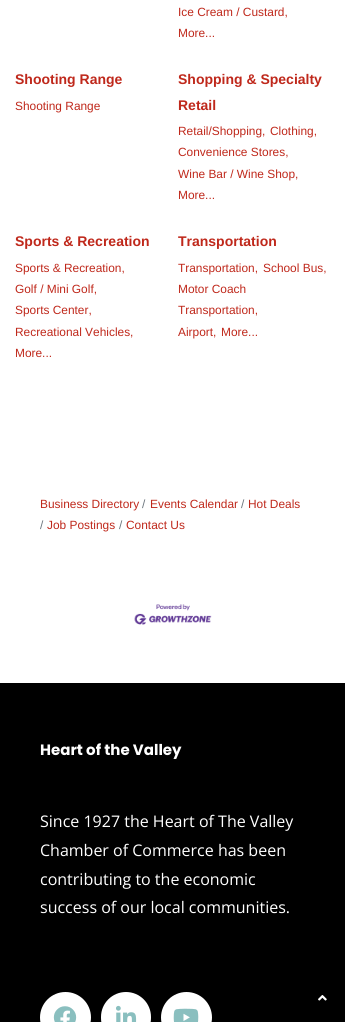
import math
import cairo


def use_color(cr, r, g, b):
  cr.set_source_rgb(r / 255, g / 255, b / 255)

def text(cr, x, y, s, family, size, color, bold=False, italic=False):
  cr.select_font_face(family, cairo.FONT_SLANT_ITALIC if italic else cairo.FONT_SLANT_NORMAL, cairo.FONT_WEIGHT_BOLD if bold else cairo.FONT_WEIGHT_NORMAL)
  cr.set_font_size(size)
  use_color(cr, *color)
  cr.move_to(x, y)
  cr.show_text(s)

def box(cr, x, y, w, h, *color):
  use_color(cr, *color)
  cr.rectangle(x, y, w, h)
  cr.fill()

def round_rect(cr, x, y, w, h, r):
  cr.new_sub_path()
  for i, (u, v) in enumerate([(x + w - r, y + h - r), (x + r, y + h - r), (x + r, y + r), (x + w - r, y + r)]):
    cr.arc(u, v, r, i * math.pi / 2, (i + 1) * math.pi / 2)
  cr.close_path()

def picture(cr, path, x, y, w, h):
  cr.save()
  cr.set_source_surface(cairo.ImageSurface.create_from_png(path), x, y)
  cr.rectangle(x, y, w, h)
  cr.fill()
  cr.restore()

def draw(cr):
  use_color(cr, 255, 255, 255)
  cr.paint()
  picture(cr, "img_01.png", 134, 604, 78, 21)
  box(cr, 0, 683, 345, 339, 0, 0, 0)
  use_color(cr, 255, 255, 255)
  cr.arc(65.5, 1017.5, 25.5, 0, 2 * math.pi)
  cr.fill()
  picture(cr, "img_02.png", 53, 1006, 24, 16)
  round_rect(cr, 101, 992, 50, 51, 25)
  cr.fill()
  picture(cr, "img_03.png", 116, 1005, 21, 17)
  cr.arc(186.5, 1017.5, 25.5, 0, 2 * math.pi)
  cr.fill()
  picture(cr, "img_04.png", 173, 1008, 26, 14)
  picture(cr, "img_05.png", 318, 995, 9, 6)
  text(cr, 178, 16, "Ice Cream / Custard,", "Liberation Sans", 11.9, (191, 40, 27))
  text(cr, 178, 37, "More...", "Liberation Sans", 11.9, (191, 40, 27))
  text(cr, 15, 84, "Shooting Range", "Liberation Sans", 14, (191, 40, 27), bold=True)
  text(cr, 15, 110, "Shooting Range", "Liberation Sans", 11.9, (191, 40, 27))
  text(cr, 178, 84, "Shopping & Specialty", "Liberation Sans", 14, (191, 40, 27), bold=True)
  text(cr, 178, 110, "Retail", "Liberation Sans", 14, (191, 40, 27), bold=True)
  text(cr, 178, 135, "Retail/Shopping,", "Liberation Sans", 11.9, (191, 40, 27))
  text(cr, 270, 135, "Clothing,", "Liberation Sans", 11.9, (191, 40, 27))
  text(cr, 178, 156, "Convenience Stores,", "Liberation Sans", 11.9, (191, 40, 27))
  text(cr, 178, 178, "Wine Bar / Wine Shop,", "Liberation Sans", 11.9, (191, 40, 27))
  text(cr, 178, 199, "More...", "Liberation Sans", 11.9, (191, 40, 27))
  text(cr, 15, 246, "Sports & Recreation", "Liberation Sans", 14, (191, 40, 27), bold=True)
  text(cr, 15, 272, "Sports & Recreation,", "Liberation Sans", 11.9, (191, 40, 27))
  text(cr, 15, 293, "Golf / Mini Golf,", "Liberation Sans", 11.9, (191, 40, 27))
  text(cr, 15, 314, "Sports Center,", "Liberation Sans", 11.9, (191, 40, 27))
  text(cr, 15, 336, "Recreational Vehicles,", "Liberation Sans", 11.9, (191, 40, 27))
  text(cr, 15, 357, "More...", "Liberation Sans", 11.9, (191, 40, 27))
  text(cr, 178, 246, "Transportation", "Liberation Sans", 14, (191, 40, 27), bold=True)
  text(cr, 178, 272, "Transportation,", "Liberation Sans", 11.9, (191, 40, 27))
  text(cr, 263, 272, "School Bus,", "Liberation Sans", 11.9, (191, 40, 27))
  text(cr, 178, 293, "Motor Coach", "Liberation Sans", 11.9, (191, 40, 27))
  text(cr, 178, 314, "Transportation,", "Liberation Sans", 11.9, (191, 40, 27))
  text(cr, 178, 336, "Airport,", "Liberation Sans", 11.9, (191, 40, 27))
  text(cr, 221, 336, "More...", "Liberation Sans", 11.9, (191, 40, 27))
  text(cr, 40, 508, "Business Directory", "Liberation Sans", 11.9, (191, 40, 27))
  text(cr, 142, 508, "/", "Liberation Sans", 11.9, (108, 117, 125))
  text(cr, 150, 508, "Events Calendar", "Liberation Sans", 11.9, (191, 40, 27))
  text(cr, 241, 508, "/", "Liberation Sans", 11.9, (108, 117, 125))
  text(cr, 248, 508, "Hot Deals", "Liberation Sans", 11.9, (191, 40, 27))
  text(cr, 40, 529, "/", "Liberation Sans", 11.9, (108, 117, 125))
  text(cr, 47, 529, "Job Postings", "Liberation Sans", 11.9, (191, 40, 27))
  text(cr, 119, 529, "/", "Liberation Sans", 11.9, (108, 117, 125))
  text(cr, 126, 529, "Contact Us", "Liberation Sans", 11.9, (191, 40, 27))
  text(cr, 40, 755, "Heart of the Valley", "Poppins", 15, (255, 255, 255), bold=True)
  text(cr, 40, 827, "Since 1927 the Heart of The Valley", "Open Sans", 16, (255, 255, 255))
  text(cr, 40, 856, "Chamber of Commerce has been", "Open Sans", 16, (255, 255, 255))
  text(cr, 40, 885, "contributing to the economic", "Open Sans", 16, (255, 255, 255))
  text(cr, 40, 913, "success of our local communities.", "Open Sans", 16, (255, 255, 255))


surface = cairo.ImageSurface(cairo.FORMAT_RGB24, 345, 1022)
cr = cairo.Context(surface)
options = cairo.FontOptions()
options.set_hint_metrics(cairo.HINT_METRICS_OFF)
options.set_hint_style(cairo.HINT_STYLE_NONE)
cr.set_font_options(options)
cr.set_miter_limit(4)
draw(cr)
surface.write_to_png("out.png")
